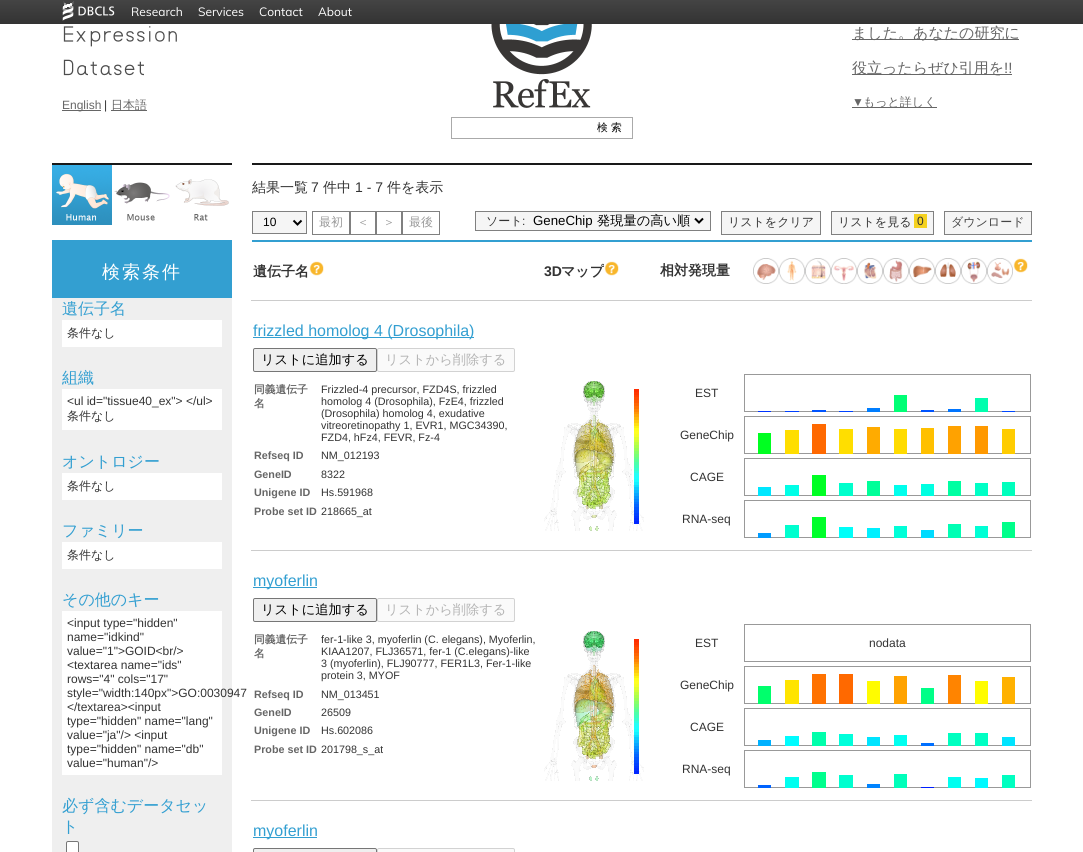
import math
import cairo


def use_color(cr, r, g, b):
  cr.set_source_rgb(r / 255, g / 255, b / 255)

def text(cr, x, y, s, family, size, color, bold=False, italic=False):
  cr.select_font_face(family, cairo.FONT_SLANT_ITALIC if italic else cairo.FONT_SLANT_NORMAL, cairo.FONT_WEIGHT_BOLD if bold else cairo.FONT_WEIGHT_NORMAL)
  cr.set_font_size(size)
  use_color(cr, *color)
  cr.move_to(x, y)
  cr.show_text(s)

def spaced_text(cr, x, y, s, letter, word):
  cr.move_to(x, y)
  for ch in s:
    cr.show_text(ch)
    cr.rel_move_to(letter + word * (ch == ' '), 0)

def box(cr, x, y, w, h, *color):
  use_color(cr, *color)
  cr.rectangle(x, y, w, h)
  cr.fill()

def round_rect(cr, x, y, w, h, r):
  cr.new_sub_path()
  for i, (u, v) in enumerate([(x + w - r, y + h - r), (x + r, y + h - r), (x + r, y + r), (x + w - r, y + r)]):
    cr.arc(u, v, r, i * math.pi / 2, (i + 1) * math.pi / 2)
  cr.close_path()

def picture(cr, path, x, y, w, h):
  cr.save()
  cr.set_source_surface(cairo.ImageSurface.create_from_png(path), x, y)
  cr.rectangle(x, y, w, h)
  cr.fill()
  cr.restore()

def draw(cr):
  use_color(cr, 255, 255, 255)
  cr.paint()
  gradient = cairo.LinearGradient(542, 0, 542, 24)
  gradient.add_color_stop_rgba(0, 0.267, 0.267, 0.267, 1)
  gradient.add_color_stop_rgba(1, 0.2, 0.2, 0.2, 1)
  cr.set_source(gradient)
  cr.rectangle(0, 0, 1083, 24)
  cr.fill()
  picture(cr, "img_01.png", 62, 1, 53, 20)
  picture(cr, "img_02.png", 63, 24, 114, 52)
  box(cr, 62, 110, 39, 1, 102, 102, 102)
  box(cr, 111, 110, 36, 1, 102, 102, 102)
  box(cr, 852, 39, 167, 1, 102, 102, 102)
  box(cr, 852, 74, 160, 1, 102, 102, 102)
  box(cr, 852, 107, 85, 1, 102, 102, 102)
  picture(cr, "img_03.png", 491, 24, 101, 84)
  cr.rectangle(451.5, 117.5, 181, 21)
  use_color(cr, 170, 170, 170)
  cr.set_line_width(1)
  cr.stroke()
  box(cr, 52, 163, 180, 2, 25, 25, 25)
  picture(cr, "img_04.png", 52, 165, 60, 60)
  picture(cr, "img_05.png", 114, 182, 56, 39)
  picture(cr, "img_06.png", 175, 179, 54, 42)
  box(cr, 252, 163, 780, 2, 25, 25, 25)
  use_color(cr, 245, 245, 245)
  cr.rectangle(252.5, 211.5, 54, 22)
  cr.fill_preserve()
  use_color(cr, 128, 128, 128)
  cr.stroke()
  cr.new_path()
  cr.move_to(293.5, 220.5)
  cr.line_to(297.5, 224.5)
  cr.line_to(301.5, 220.5)
  use_color(cr, 0, 0, 0)
  cr.set_line_width(2)
  cr.stroke()
  cr.rectangle(312.5, 211.5, 37, 23)
  use_color(cr, 128, 128, 128)
  cr.set_line_width(1)
  cr.stroke()
  cr.rectangle(350.5, 211.5, 25, 23)
  cr.stroke()
  cr.rectangle(376.5, 211.5, 25, 23)
  cr.stroke()
  cr.rectangle(402.5, 211.5, 37, 23)
  cr.stroke()
  use_color(cr, 245, 245, 245)
  cr.rectangle(475.5, 211.5, 235, 19)
  cr.fill_preserve()
  use_color(cr, 128, 128, 128)
  cr.stroke()
  cr.new_path()
  cr.move_to(695, 218.5)
  cr.line_to(699, 222.5)
  cr.line_to(703, 218.5)
  use_color(cr, 0, 0, 0)
  cr.set_line_width(2)
  cr.stroke()
  use_color(cr, 245, 245, 245)
  cr.rectangle(721.5, 211.5, 99, 23)
  cr.fill_preserve()
  use_color(cr, 128, 128, 128)
  cr.set_line_width(1)
  cr.stroke()
  use_color(cr, 245, 245, 245)
  cr.rectangle(831.5, 211.5, 102, 23)
  cr.fill_preserve()
  use_color(cr, 128, 128, 128)
  cr.stroke()
  box(cr, 914, 214, 13, 14, 245, 210, 32)
  use_color(cr, 245, 245, 245)
  cr.rectangle(944.5, 211.5, 87, 23)
  cr.fill_preserve()
  use_color(cr, 128, 128, 128)
  cr.stroke()
  box(cr, 52, 298, 180, 554, 239, 239, 239)
  box(cr, 52, 240, 180, 58, 51, 159, 209)
  box(cr, 62, 320, 160, 27, 255, 255, 255)
  box(cr, 62, 389, 160, 41, 255, 255, 255)
  box(cr, 62, 473, 160, 27, 255, 255, 255)
  box(cr, 62, 542, 160, 27, 255, 255, 255)
  box(cr, 62, 611, 160, 164, 255, 255, 255)
  round_rect(cr, 66.5, 841.5, 12, 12, 1.5)
  cr.fill_preserve()
  use_color(cr, 118, 118, 118)
  cr.stroke()
  box(cr, 252, 240, 780, 2, 51, 159, 209)
  box(cr, 251, 300, 781, 1, 204, 204, 204)
  picture(cr, "img_07.png", 753, 258, 26, 26)
  picture(cr, "img_08.png", 779, 258, 26, 26)
  picture(cr, "img_09.png", 805, 258, 26, 26)
  picture(cr, "img_10.png", 831, 258, 26, 26)
  picture(cr, "img_11.png", 857, 258, 26, 26)
  picture(cr, "img_12.png", 883, 258, 26, 26)
  picture(cr, "img_13.png", 909, 258, 26, 26)
  picture(cr, "img_14.png", 935, 258, 26, 26)
  picture(cr, "img_15.png", 961, 258, 26, 26)
  picture(cr, "img_16.png", 987, 258, 26, 26)
  picture(cr, "img_17.png", 1013, 258, 15, 15)
  picture(cr, "img_18.png", 309, 261, 15, 15)
  box(cr, 253, 337, 221, 1, 51, 159, 209)
  use_color(cr, 239, 239, 239)
  round_rect(cr, 253.5, 348.5, 123, 23, 1.5)
  cr.fill_preserve()
  use_color(cr, 118, 118, 118)
  cr.stroke()
  use_color(cr, 250, 250, 250)
  round_rect(cr, 377.5, 348.5, 137, 23, 1.5)
  cr.fill_preserve()
  use_color(cr, 210, 210, 210)
  cr.stroke()
  picture(cr, "img_19.png", 544, 381, 100, 150)
  box(cr, 251, 550, 781, 1, 204, 204, 204)
  box(cr, 744, 374, 287, 1, 153, 153, 153)
  box(cr, 744, 411, 14, 1, 153, 153, 153)
  box(cr, 744, 374, 1, 38, 153, 153, 153)
  box(cr, 1030, 374, 1, 38, 153, 153, 153)
  box(cr, 1015, 411, 16, 1, 153, 153, 153)
  box(cr, 758, 411, 13, 1, 0, 51, 255)
  box(cr, 771, 411, 14, 1, 153, 153, 153)
  box(cr, 785, 411, 14, 1, 0, 63, 255)
  box(cr, 799, 411, 13, 1, 153, 153, 153)
  box(cr, 812, 410, 14, 2, 0, 84, 255)
  box(cr, 826, 411, 13, 1, 153, 153, 153)
  box(cr, 839, 411, 14, 1, 0, 66, 255)
  box(cr, 853, 411, 14, 1, 153, 153, 153)
  box(cr, 867, 408, 13, 4, 0, 126, 255)
  box(cr, 880, 411, 14, 1, 153, 153, 153)
  box(cr, 894, 395, 13, 17, 0, 255, 117)
  box(cr, 907, 411, 14, 1, 153, 153, 153)
  box(cr, 921, 410, 13, 2, 0, 84, 255)
  box(cr, 934, 411, 14, 1, 153, 153, 153)
  box(cr, 948, 409, 13, 3, 0, 117, 255)
  box(cr, 961, 411, 14, 1, 153, 153, 153)
  box(cr, 975, 398, 13, 14, 0, 255, 174)
  box(cr, 988, 411, 14, 1, 153, 153, 153)
  box(cr, 1002, 411, 13, 1, 0, 72, 255)
  box(cr, 744, 416, 287, 1, 153, 153, 153)
  box(cr, 744, 453, 14, 1, 153, 153, 153)
  box(cr, 744, 416, 1, 38, 153, 153, 153)
  box(cr, 758, 433, 13, 21, 0, 255, 33)
  box(cr, 771, 453, 14, 1, 153, 153, 153)
  box(cr, 785, 430, 14, 24, 255, 222, 0)
  box(cr, 799, 453, 13, 1, 153, 153, 153)
  box(cr, 812, 424, 14, 30, 255, 105, 0)
  box(cr, 826, 453, 13, 1, 153, 153, 153)
  box(cr, 839, 429, 14, 25, 255, 222, 0)
  box(cr, 853, 453, 14, 1, 153, 153, 153)
  box(cr, 867, 427, 13, 27, 255, 171, 0)
  box(cr, 880, 453, 14, 1, 153, 153, 153)
  box(cr, 894, 429, 13, 25, 255, 219, 0)
  box(cr, 907, 453, 14, 1, 153, 153, 153)
  box(cr, 921, 428, 13, 26, 255, 192, 0)
  box(cr, 934, 453, 14, 1, 153, 153, 153)
  box(cr, 948, 426, 13, 28, 255, 162, 0)
  box(cr, 961, 453, 14, 1, 153, 153, 153)
  box(cr, 975, 426, 13, 28, 255, 153, 0)
  box(cr, 988, 453, 14, 1, 153, 153, 153)
  box(cr, 1002, 429, 13, 25, 255, 204, 0)
  box(cr, 1030, 416, 1, 38, 153, 153, 153)
  box(cr, 1015, 453, 16, 1, 153, 153, 153)
  box(cr, 744, 458, 287, 1, 153, 153, 153)
  box(cr, 744, 495, 14, 1, 153, 153, 153)
  box(cr, 744, 458, 1, 38, 153, 153, 153)
  box(cr, 758, 487, 13, 9, 0, 231, 255)
  box(cr, 771, 495, 14, 1, 153, 153, 153)
  box(cr, 785, 485, 14, 11, 0, 255, 231)
  box(cr, 799, 495, 13, 1, 153, 153, 153)
  box(cr, 812, 475, 14, 21, 0, 255, 36)
  box(cr, 826, 495, 13, 1, 153, 153, 153)
  box(cr, 839, 483, 14, 13, 0, 255, 204)
  box(cr, 853, 495, 14, 1, 153, 153, 153)
  box(cr, 867, 481, 13, 15, 0, 255, 153)
  box(cr, 880, 495, 14, 1, 153, 153, 153)
  box(cr, 894, 485, 13, 11, 0, 255, 237)
  box(cr, 907, 495, 14, 1, 153, 153, 153)
  box(cr, 921, 484, 13, 12, 0, 255, 225)
  box(cr, 934, 495, 14, 1, 153, 153, 153)
  box(cr, 948, 481, 13, 15, 0, 255, 162)
  box(cr, 961, 495, 14, 1, 153, 153, 153)
  box(cr, 975, 483, 13, 13, 0, 255, 198)
  box(cr, 988, 495, 14, 1, 153, 153, 153)
  box(cr, 1002, 482, 13, 14, 0, 255, 189)
  box(cr, 1030, 458, 1, 38, 153, 153, 153)
  box(cr, 1015, 495, 16, 1, 153, 153, 153)
  box(cr, 744, 500, 287, 1, 153, 153, 153)
  box(cr, 744, 537, 14, 1, 153, 153, 153)
  box(cr, 744, 500, 1, 38, 153, 153, 153)
  box(cr, 758, 533, 13, 5, 0, 156, 255)
  box(cr, 771, 537, 14, 1, 153, 153, 153)
  box(cr, 785, 525, 14, 13, 0, 255, 207)
  box(cr, 799, 537, 13, 1, 153, 153, 153)
  box(cr, 812, 517, 14, 21, 0, 255, 42)
  box(cr, 826, 537, 13, 1, 153, 153, 153)
  box(cr, 839, 527, 14, 11, 0, 255, 249)
  box(cr, 853, 537, 14, 1, 153, 153, 153)
  box(cr, 867, 528, 13, 10, 0, 240, 255)
  box(cr, 880, 537, 14, 1, 153, 153, 153)
  box(cr, 894, 526, 13, 12, 0, 255, 216)
  box(cr, 907, 537, 14, 1, 153, 153, 153)
  box(cr, 921, 530, 13, 8, 0, 219, 255)
  box(cr, 934, 537, 14, 1, 153, 153, 153)
  box(cr, 948, 524, 13, 14, 0, 255, 180)
  box(cr, 961, 537, 14, 1, 153, 153, 153)
  box(cr, 975, 526, 13, 12, 0, 255, 213)
  box(cr, 988, 537, 14, 1, 153, 153, 153)
  box(cr, 1002, 522, 13, 16, 0, 255, 138)
  box(cr, 1030, 500, 1, 38, 153, 153, 153)
  box(cr, 1015, 537, 16, 1, 153, 153, 153)
  box(cr, 253, 587, 64, 1, 51, 159, 209)
  use_color(cr, 239, 239, 239)
  round_rect(cr, 253.5, 598.5, 123, 23, 1.5)
  cr.fill_preserve()
  use_color(cr, 118, 118, 118)
  cr.stroke()
  use_color(cr, 250, 250, 250)
  round_rect(cr, 377.5, 598.5, 137, 23, 1.5)
  cr.fill_preserve()
  use_color(cr, 210, 210, 210)
  cr.stroke()
  picture(cr, "img_20.png", 544, 631, 100, 150)
  box(cr, 251, 800, 781, 1, 204, 204, 204)
  cr.rectangle(744.5, 624.5, 286, 37)
  use_color(cr, 153, 153, 153)
  cr.stroke()
  box(cr, 744, 666, 287, 1, 153, 153, 153)
  box(cr, 744, 703, 14, 1, 153, 153, 153)
  box(cr, 744, 666, 1, 38, 153, 153, 153)
  box(cr, 758, 686, 13, 18, 0, 255, 108)
  box(cr, 771, 703, 14, 1, 153, 153, 153)
  box(cr, 785, 680, 14, 24, 255, 228, 0)
  box(cr, 799, 703, 13, 1, 153, 153, 153)
  box(cr, 812, 674, 14, 30, 255, 114, 0)
  box(cr, 826, 703, 13, 1, 153, 153, 153)
  box(cr, 839, 674, 14, 30, 255, 105, 0)
  box(cr, 853, 703, 14, 1, 153, 153, 153)
  box(cr, 867, 681, 13, 23, 255, 252, 0)
  box(cr, 880, 703, 14, 1, 153, 153, 153)
  box(cr, 894, 676, 13, 28, 255, 162, 0)
  box(cr, 907, 703, 14, 1, 153, 153, 153)
  box(cr, 921, 688, 13, 16, 0, 255, 135)
  box(cr, 934, 703, 14, 1, 153, 153, 153)
  box(cr, 948, 675, 13, 29, 255, 132, 0)
  box(cr, 961, 703, 14, 1, 153, 153, 153)
  box(cr, 975, 681, 13, 23, 255, 252, 0)
  box(cr, 988, 703, 14, 1, 153, 153, 153)
  box(cr, 1002, 677, 13, 27, 255, 177, 0)
  box(cr, 1030, 666, 1, 38, 153, 153, 153)
  box(cr, 1015, 703, 16, 1, 153, 153, 153)
  box(cr, 744, 708, 287, 1, 153, 153, 153)
  box(cr, 744, 745, 14, 1, 153, 153, 153)
  box(cr, 744, 708, 1, 38, 153, 153, 153)
  box(cr, 1030, 708, 1, 38, 153, 153, 153)
  box(cr, 1015, 745, 16, 1, 153, 153, 153)
  box(cr, 758, 740, 13, 6, 0, 177, 255)
  box(cr, 771, 745, 14, 1, 153, 153, 153)
  box(cr, 785, 736, 14, 10, 0, 252, 255)
  box(cr, 799, 745, 13, 1, 153, 153, 153)
  box(cr, 812, 732, 14, 14, 0, 255, 171)
  box(cr, 826, 745, 13, 1, 153, 153, 153)
  box(cr, 839, 734, 14, 12, 0, 255, 219)
  box(cr, 853, 745, 14, 1, 153, 153, 153)
  box(cr, 867, 737, 13, 9, 0, 228, 255)
  box(cr, 880, 745, 14, 1, 153, 153, 153)
  box(cr, 894, 735, 13, 11, 0, 255, 240)
  box(cr, 907, 745, 14, 1, 153, 153, 153)
  box(cr, 921, 743, 13, 3, 0, 111, 255)
  box(cr, 934, 745, 14, 1, 153, 153, 153)
  box(cr, 948, 733, 13, 13, 0, 255, 192)
  box(cr, 961, 745, 14, 1, 153, 153, 153)
  box(cr, 975, 733, 13, 13, 0, 255, 195)
  box(cr, 988, 745, 14, 1, 153, 153, 153)
  box(cr, 1002, 737, 13, 9, 0, 228, 255)
  box(cr, 744, 750, 287, 1, 153, 153, 153)
  box(cr, 744, 787, 14, 1, 153, 153, 153)
  box(cr, 744, 750, 1, 38, 153, 153, 153)
  box(cr, 1030, 750, 1, 38, 153, 153, 153)
  box(cr, 1015, 787, 16, 1, 153, 153, 153)
  box(cr, 758, 785, 13, 3, 0, 99, 255)
  box(cr, 771, 787, 14, 1, 153, 153, 153)
  box(cr, 785, 777, 14, 11, 0, 255, 240)
  box(cr, 799, 787, 13, 1, 153, 153, 153)
  box(cr, 812, 772, 14, 16, 0, 255, 141)
  box(cr, 826, 787, 13, 1, 153, 153, 153)
  box(cr, 839, 775, 14, 13, 0, 255, 207)
  box(cr, 853, 787, 14, 1, 153, 153, 153)
  box(cr, 867, 784, 13, 4, 0, 132, 255)
  box(cr, 880, 787, 14, 1, 153, 153, 153)
  box(cr, 894, 774, 13, 14, 0, 255, 186)
  box(cr, 907, 787, 14, 1, 153, 153, 153)
  box(cr, 921, 787, 13, 1, 0, 30, 255)
  box(cr, 934, 787, 14, 1, 153, 153, 153)
  box(cr, 948, 777, 13, 11, 0, 255, 240)
  box(cr, 961, 787, 14, 1, 153, 153, 153)
  box(cr, 975, 778, 13, 10, 0, 249, 255)
  box(cr, 988, 787, 14, 1, 153, 153, 153)
  box(cr, 1002, 775, 13, 13, 0, 255, 192)
  box(cr, 253, 837, 64, 1, 51, 159, 209)
  use_color(cr, 239, 239, 239)
  round_rect(cr, 253.5, 848.5, 123, 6, 1.5)
  cr.fill_preserve()
  use_color(cr, 118, 118, 118)
  cr.stroke()
  use_color(cr, 250, 250, 250)
  round_rect(cr, 377.5, 848.5, 137, 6, 1.5)
  cr.fill_preserve()
  use_color(cr, 210, 210, 210)
  cr.stroke()
  text(cr, 131, 16, "Research", "Muli", 12, (255, 255, 255))
  text(cr, 198, 16, "Services", "Muli", 12, (255, 255, 255))
  text(cr, 259, 16, "Contact", "Muli", 12, (255, 255, 255))
  text(cr, 318, 16, "About", "Muli", 12, (255, 255, 255))
  text(cr, 62, 109, "English", "Liberation Sans", 12, (102, 102, 102))
  text(cr, 104, 109, "|", "Liberation Sans", 12, (51, 51, 51))
  text(cr, 111, 109, "日本語", "WenQuanYi Zen Hei Medium", 12, (102, 102, 102))
  text(cr, 852, 38, "ました。あなたの研究に", "WenQuanYi Zen Hei Medium", 15, (102, 102, 102))
  text(cr, 852, 73, "役立ったらぜひ引用を", "WenQuanYi Zen Hei Medium", 15, (102, 102, 102))
  text(cr, 1004, 73, "!!", "Liberation Sans", 15, (102, 102, 102))
  text(cr, 852, 106, "▼", "Liberation Sans", 12, (102, 102, 102))
  text(cr, 863, 106, "もっと詳しく", "WenQuanYi Zen Hei Medium", 12, (102, 102, 102))
  text(cr, 597, 131, "検 索", "WenQuanYi Zen Hei Medium", 10.75, (0, 0, 0))
  text(cr, 252, 192, "結果一覧", "WenQuanYi Zen Hei Medium", 14, (51, 51, 51))
  text(cr, 311, 192, "7", "Liberation Sans", 14, (51, 51, 51))
  text(cr, 323, 192, "件中", "WenQuanYi Zen Hei Medium", 14, (51, 51, 51))
  text(cr, 355, 192, "1 - 7", "Liberation Sans", 14, (51, 51, 51))
  text(cr, 387, 192, "件を表示", "WenQuanYi Zen Hei Medium", 14, (51, 51, 51))
  text(cr, 263, 226, "10", "Liberation Sans", 12, (0, 0, 0))
  text(cr, 319, 226, "最初", "WenQuanYi Zen Hei Medium", 12, (153, 153, 153))
  text(cr, 357, 226, "＜", "WenQuanYi Zen Hei Medium", 12, (153, 153, 153))
  text(cr, 383, 226, "＞", "WenQuanYi Zen Hei Medium", 12, (153, 153, 153))
  text(cr, 409, 226, "最後", "WenQuanYi Zen Hei Medium", 12, (153, 153, 153))
  text(cr, 486, 225, "ソート", "WenQuanYi Zen Hei Medium", 12, (51, 51, 51))
  text(cr, 522, 225, ":", "Liberation Sans", 12, (51, 51, 51))
  text(cr, 533, 225, "GeneChip", "Liberation Sans", 13.25, (0, 0, 0))
  text(cr, 597, 225, "発現量の高い順", "WenQuanYi Zen Hei Medium", 13.25, (0, 0, 0))
  text(cr, 728, 226, "リストをクリア", "WenQuanYi Zen Hei Medium", 12, (51, 51, 51))
  text(cr, 838, 226, "リストを見る", "WenQuanYi Zen Hei Medium", 12, (51, 51, 51))
  text(cr, 917, 225, "0", "Liberation Sans", 12, (51, 51, 51))
  text(cr, 951, 226, "ダウンロード", "WenQuanYi Zen Hei Medium", 12, (68, 68, 68))
  cr.set_font_size(18)
  use_color(cr, 255, 255, 255)
  spaced_text(cr, 102, 278, "検索条件", 2, 0)
  text(cr, 62, 314, "遺伝子名", "WenQuanYi Zen Hei Medium", 16, (51, 159, 209))
  text(cr, 67, 337, "条件なし", "WenQuanYi Zen Hei Medium", 12, (51, 51, 51))
  text(cr, 62, 383, "組織", "WenQuanYi Zen Hei Medium", 16, (51, 159, 209))
  text(cr, 67, 405, "<ul id=\"tissue40_ex\"> </ul>", "Liberation Sans", 12, (51, 51, 51))
  text(cr, 67, 420, "条件なし", "WenQuanYi Zen Hei Medium", 12, (51, 51, 51))
  text(cr, 62, 467, "オントロジー", "WenQuanYi Zen Hei Medium", 16, (51, 159, 209))
  text(cr, 67, 490, "条件なし", "WenQuanYi Zen Hei Medium", 12, (51, 51, 51))
  text(cr, 62, 536, "ファミリー", "WenQuanYi Zen Hei Medium", 16, (51, 159, 209))
  text(cr, 67, 559, "条件なし", "WenQuanYi Zen Hei Medium", 12, (51, 51, 51))
  text(cr, 62, 605, "その他のキー", "WenQuanYi Zen Hei Medium", 16, (51, 159, 209))
  text(cr, 67, 627, "<input type=\"hidden\"", "Liberation Sans", 12, (51, 51, 51))
  text(cr, 67, 641, "name=\"idkind\"", "Liberation Sans", 12, (51, 51, 51))
  text(cr, 67, 655, "value=\"1\">GOID<br/>", "Liberation Sans", 12, (51, 51, 51))
  text(cr, 67, 669, "<textarea name=\"ids\"", "Liberation Sans", 12, (51, 51, 51))
  text(cr, 67, 683, "rows=\"4\" cols=\"17\"", "Liberation Sans", 12, (51, 51, 51))
  text(cr, 67, 697, "style=\"width:140px\">GO:0030947", "Liberation Sans", 12, (51, 51, 51))
  text(cr, 67, 711, "</textarea><input", "Liberation Sans", 12, (51, 51, 51))
  text(cr, 67, 725, "type=\"hidden\" name=\"lang\"", "Liberation Sans", 12, (51, 51, 51))
  text(cr, 67, 739, "value=\"ja\"/> <input", "Liberation Sans", 12, (51, 51, 51))
  text(cr, 67, 753, "type=\"hidden\" name=\"db\"", "Liberation Sans", 12, (51, 51, 51))
  text(cr, 67, 767, "value=\"human\"/>", "Liberation Sans", 12, (51, 51, 51))
  text(cr, 62, 811, "必ず含むデータセッ", "WenQuanYi Zen Hei Medium", 16, (51, 159, 209))
  text(cr, 62, 832, "ト", "WenQuanYi Zen Hei Medium", 16, (51, 159, 209))
  text(cr, 253, 276, "遺伝子名", "WenQuanYi Zen Hei", 14, (51, 51, 51), bold=True)
  text(cr, 544, 276, "3D", "Liberation Sans", 14, (51, 51, 51), bold=True)
  text(cr, 561, 276, "マップ", "WenQuanYi Zen Hei", 14, (51, 51, 51), bold=True)
  picture(cr, "img_18.png", 604, 261, 15, 15)
  text(cr, 660, 275, "相対発現量", "WenQuanYi Zen Hei", 14, (51, 51, 51), bold=True)
  text(cr, 253, 336, "frizzled homolog 4 (Drosophila)", "Liberation Sans", 16, (51, 159, 209))
  text(cr, 261, 364, "リストに追加する", "WenQuanYi Zen Hei Medium", 13.25, (0, 0, 0))
  text(cr, 385, 364, "リストから削除する", "WenQuanYi Zen Hei Medium", 13.25, (180, 180, 180))
  text(cr, 254, 393, "同義遺伝子", "WenQuanYi Zen Hei", 10.75, (102, 102, 102), bold=True)
  text(cr, 254, 407, "名", "WenQuanYi Zen Hei", 10.75, (102, 102, 102), bold=True)
  text(cr, 321, 393, "Frizzled-4 precursor, FZD4S, frizzled", "Liberation Sans", 10.75, (51, 51, 51))
  text(cr, 321, 405, "homolog 4 (Drosophila), FzE4, frizzled", "Liberation Sans", 10.75, (51, 51, 51))
  text(cr, 321, 417, "(Drosophila) homolog 4, exudative", "Liberation Sans", 10.75, (51, 51, 51))
  text(cr, 321, 429, "vitreoretinopathy 1, EVR1, MGC34390,", "Liberation Sans", 10.75, (51, 51, 51))
  text(cr, 321, 441, "FZD4, hFz4, FEVR, Fz-4", "Liberation Sans", 10.75, (51, 51, 51))
  text(cr, 254, 459, "Refseq ID", "Liberation Sans", 10.75, (102, 102, 102), bold=True)
  text(cr, 321, 459, "NM_012193", "Liberation Sans", 10.75, (51, 51, 51))
  text(cr, 254, 478, "GeneID", "Liberation Sans", 10.75, (102, 102, 102), bold=True)
  text(cr, 321, 478, "8322", "Liberation Sans", 10.75, (51, 51, 51))
  text(cr, 254, 496, "Unigene ID", "Liberation Sans", 10.75, (102, 102, 102), bold=True)
  text(cr, 321, 496, "Hs.591968", "Liberation Sans", 10.75, (51, 51, 51))
  text(cr, 254, 515, "Probe set ID", "Liberation Sans", 10.75, (102, 102, 102), bold=True)
  text(cr, 321, 515, "218665_at", "Liberation Sans", 10.75, (51, 51, 51))
  text(cr, 695, 397, "EST", "Liberation Sans", 12, (51, 51, 51))
  text(cr, 680, 439, "GeneChip", "Liberation Sans", 12, (51, 51, 51))
  text(cr, 690, 481, "CAGE", "Liberation Sans", 12, (51, 51, 51))
  text(cr, 682, 523, "RNA-seq", "Liberation Sans", 12, (51, 51, 51))
  text(cr, 253, 586, "myoferlin", "Liberation Sans", 16, (51, 159, 209))
  text(cr, 261, 614, "リストに追加する", "WenQuanYi Zen Hei Medium", 13.25, (0, 0, 0))
  text(cr, 385, 614, "リストから削除する", "WenQuanYi Zen Hei Medium", 13.25, (180, 180, 180))
  text(cr, 254, 643, "同義遺伝子", "WenQuanYi Zen Hei", 10.75, (102, 102, 102), bold=True)
  text(cr, 254, 657, "名", "WenQuanYi Zen Hei", 10.75, (102, 102, 102), bold=True)
  text(cr, 321, 643, "fer-1-like 3, myoferlin (C. elegans), Myoferlin,", "Liberation Sans", 10.75, (51, 51, 51))
  text(cr, 321, 655, "KIAA1207, FLJ36571, fer-1 (C.elegans)-like", "Liberation Sans", 10.75, (51, 51, 51))
  text(cr, 321, 667, "3 (myoferlin), FLJ90777, FER1L3, Fer-1-like", "Liberation Sans", 10.75, (51, 51, 51))
  text(cr, 321, 679, "protein 3, MYOF", "Liberation Sans", 10.75, (51, 51, 51))
  text(cr, 254, 698, "Refseq ID", "Liberation Sans", 10.75, (102, 102, 102), bold=True)
  text(cr, 321, 698, "NM_013451", "Liberation Sans", 10.75, (51, 51, 51))
  text(cr, 254, 716, "GeneID", "Liberation Sans", 10.75, (102, 102, 102), bold=True)
  text(cr, 321, 716, "26509", "Liberation Sans", 10.75, (51, 51, 51))
  text(cr, 254, 734, "Unigene ID", "Liberation Sans", 10.75, (102, 102, 102), bold=True)
  text(cr, 321, 734, "Hs.602086", "Liberation Sans", 10.75, (51, 51, 51))
  text(cr, 254, 753, "Probe set ID", "Liberation Sans", 10.75, (102, 102, 102), bold=True)
  text(cr, 321, 753, "201798_s_at", "Liberation Sans", 10.75, (51, 51, 51))
  text(cr, 695, 647, "EST", "Liberation Sans", 12, (51, 51, 51))
  text(cr, 869, 647, "nodata", "Liberation Sans", 12, (51, 51, 51))
  text(cr, 680, 689, "GeneChip", "Liberation Sans", 12, (51, 51, 51))
  text(cr, 690, 731, "CAGE", "Liberation Sans", 12, (51, 51, 51))
  text(cr, 682, 773, "RNA-seq", "Liberation Sans", 12, (51, 51, 51))
  text(cr, 253, 836, "myoferlin", "Liberation Sans", 16, (51, 159, 209))


surface = cairo.ImageSurface(cairo.FORMAT_RGB24, 1083, 852)
cr = cairo.Context(surface)
options = cairo.FontOptions()
options.set_hint_metrics(cairo.HINT_METRICS_OFF)
options.set_hint_style(cairo.HINT_STYLE_NONE)
cr.set_font_options(options)
cr.set_miter_limit(4)
draw(cr)
surface.write_to_png("out.png")
